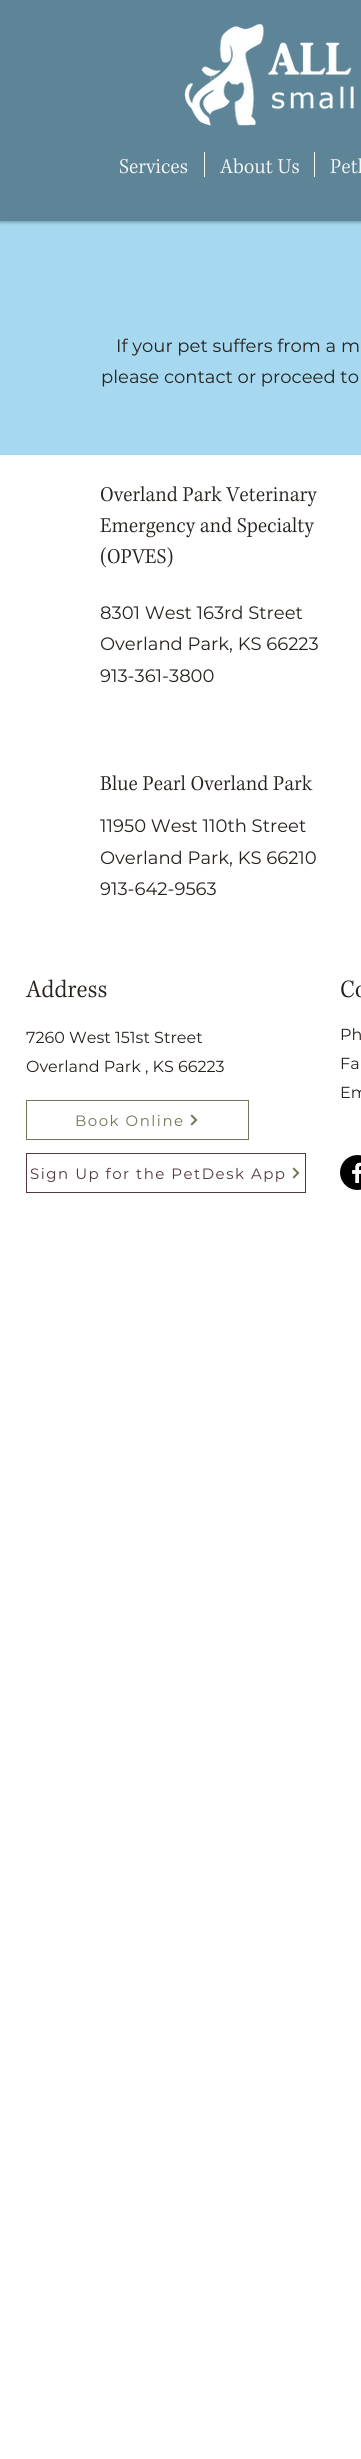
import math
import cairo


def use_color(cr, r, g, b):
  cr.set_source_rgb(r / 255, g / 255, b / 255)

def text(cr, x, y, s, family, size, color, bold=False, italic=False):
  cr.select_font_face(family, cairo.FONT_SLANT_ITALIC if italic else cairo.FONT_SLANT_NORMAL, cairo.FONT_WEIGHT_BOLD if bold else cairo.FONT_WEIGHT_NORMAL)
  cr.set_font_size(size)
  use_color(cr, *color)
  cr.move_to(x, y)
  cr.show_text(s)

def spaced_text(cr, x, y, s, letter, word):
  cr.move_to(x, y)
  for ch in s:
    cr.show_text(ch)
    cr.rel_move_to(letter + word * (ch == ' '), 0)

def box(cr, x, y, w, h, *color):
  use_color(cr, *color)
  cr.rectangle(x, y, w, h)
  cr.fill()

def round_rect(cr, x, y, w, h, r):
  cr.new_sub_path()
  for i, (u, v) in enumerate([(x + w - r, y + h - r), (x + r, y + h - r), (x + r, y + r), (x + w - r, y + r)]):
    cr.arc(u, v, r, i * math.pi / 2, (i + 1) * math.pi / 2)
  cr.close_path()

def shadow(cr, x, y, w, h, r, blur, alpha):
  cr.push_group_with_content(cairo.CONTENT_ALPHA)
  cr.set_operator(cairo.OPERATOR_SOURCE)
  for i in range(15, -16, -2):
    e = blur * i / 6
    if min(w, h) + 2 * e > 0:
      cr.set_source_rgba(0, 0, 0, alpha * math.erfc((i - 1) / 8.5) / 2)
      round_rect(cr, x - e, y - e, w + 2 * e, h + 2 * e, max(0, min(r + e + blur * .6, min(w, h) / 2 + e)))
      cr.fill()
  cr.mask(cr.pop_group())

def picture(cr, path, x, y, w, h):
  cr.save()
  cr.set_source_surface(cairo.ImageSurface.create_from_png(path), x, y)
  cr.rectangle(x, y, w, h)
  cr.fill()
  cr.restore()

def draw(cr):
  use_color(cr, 255, 255, 255)
  cr.paint()
  box(cr, 0, 221, 361, 234, 166, 217, 240)
  use_color(cr, 0, 0, 0)
  shadow(cr, 0, 0, 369, 221, 0, 2.5, 0.5)
  box(cr, 0, 0, 361, 221, 93, 133, 151)
  picture(cr, "img_01.png", 184, 23, 170, 103)
  picture(cr, "img_02.png", 119, 158, 69, 16)
  box(cr, 204, 152, 1, 25, 247, 247, 247)
  picture(cr, "img_03.png", 219, 158, 80, 16)
  box(cr, 314, 152, 1, 25, 247, 247, 247)
  picture(cr, "img_04.png", 330, 158, 31, 16)
  picture(cr, "img_05.png", 101, 486, 216, 21)
  picture(cr, "img_06.png", 100, 517, 215, 21)
  picture(cr, "img_07.png", 101, 547, 72, 21)
  picture(cr, "img_08.png", 100, 775, 213, 16)
  picture(cr, "img_09.png", 25, 979, 82, 19)
  picture(cr, "img_10.png", 341, 980, 20, 18)
  cr.rectangle(26.5, 1100.5, 222, 39)
  use_color(cr, 114, 117, 87)
  cr.set_line_width(1)
  cr.stroke()
  picture(cr, "img_11.png", 190, 1114, 8, 12)
  cr.rectangle(26.5, 1153.5, 279, 39)
  use_color(cr, 81, 54, 67)
  cr.stroke()
  picture(cr, "img_11.png", 292, 1167, 8, 12)
  picture(cr, "img_12.png", 340, 1155, 21, 35)
  text(cr, 116, 352, "If your pet suffers from a m", "Montserrat", 18, (39, 33, 30))
  text(cr, 101, 383, "please contact or proceed to", "Montserrat", 18, (39, 33, 30))
  text(cr, 100, 619, "8301 West 163rd Street", "Montserrat", 18, (39, 33, 30))
  text(cr, 100, 650, "Overland Park, KS 66223", "Montserrat", 18, (39, 33, 30))
  text(cr, 100, 682, "913-361-3800", "Montserrat", 18, (39, 33, 30))
  text(cr, 100, 832, "11950 West 110th Street", "Montserrat", 18, (39, 33, 30))
  text(cr, 100, 864, "Overland Park, KS 66210", "Montserrat", 18, (39, 33, 30))
  text(cr, 100, 895, "913-642-9563", "Montserrat", 18, (39, 33, 30))
  text(cr, 26, 1043, "7260 West 151st Street", "Montserrat", 16, (39, 33, 30))
  text(cr, 26, 1072, "Overland Park , KS 66223", "Montserrat", 16, (39, 33, 30))
  text(cr, 340, 1040, "Ph", "Montserrat", 16, (39, 33, 30))
  text(cr, 340, 1069, "Fa", "Montserrat", 16, (39, 33, 30))
  text(cr, 340, 1098, "Em", "Montserrat", 16, (39, 33, 30))
  cr.set_font_size(15)
  use_color(cr, 114, 117, 87)
  spaced_text(cr, 75, 1126, "Book Online", 1.5, 0)
  use_color(cr, 81, 54, 67)
  spaced_text(cr, 30, 1179, "Sign Up for the PetDesk App", 1.5, 0)


surface = cairo.ImageSurface(cairo.FORMAT_RGB24, 361, 2459)
cr = cairo.Context(surface)
options = cairo.FontOptions()
options.set_hint_metrics(cairo.HINT_METRICS_OFF)
options.set_hint_style(cairo.HINT_STYLE_NONE)
cr.set_font_options(options)
cr.set_miter_limit(4)
draw(cr)
surface.write_to_png("out.png")
